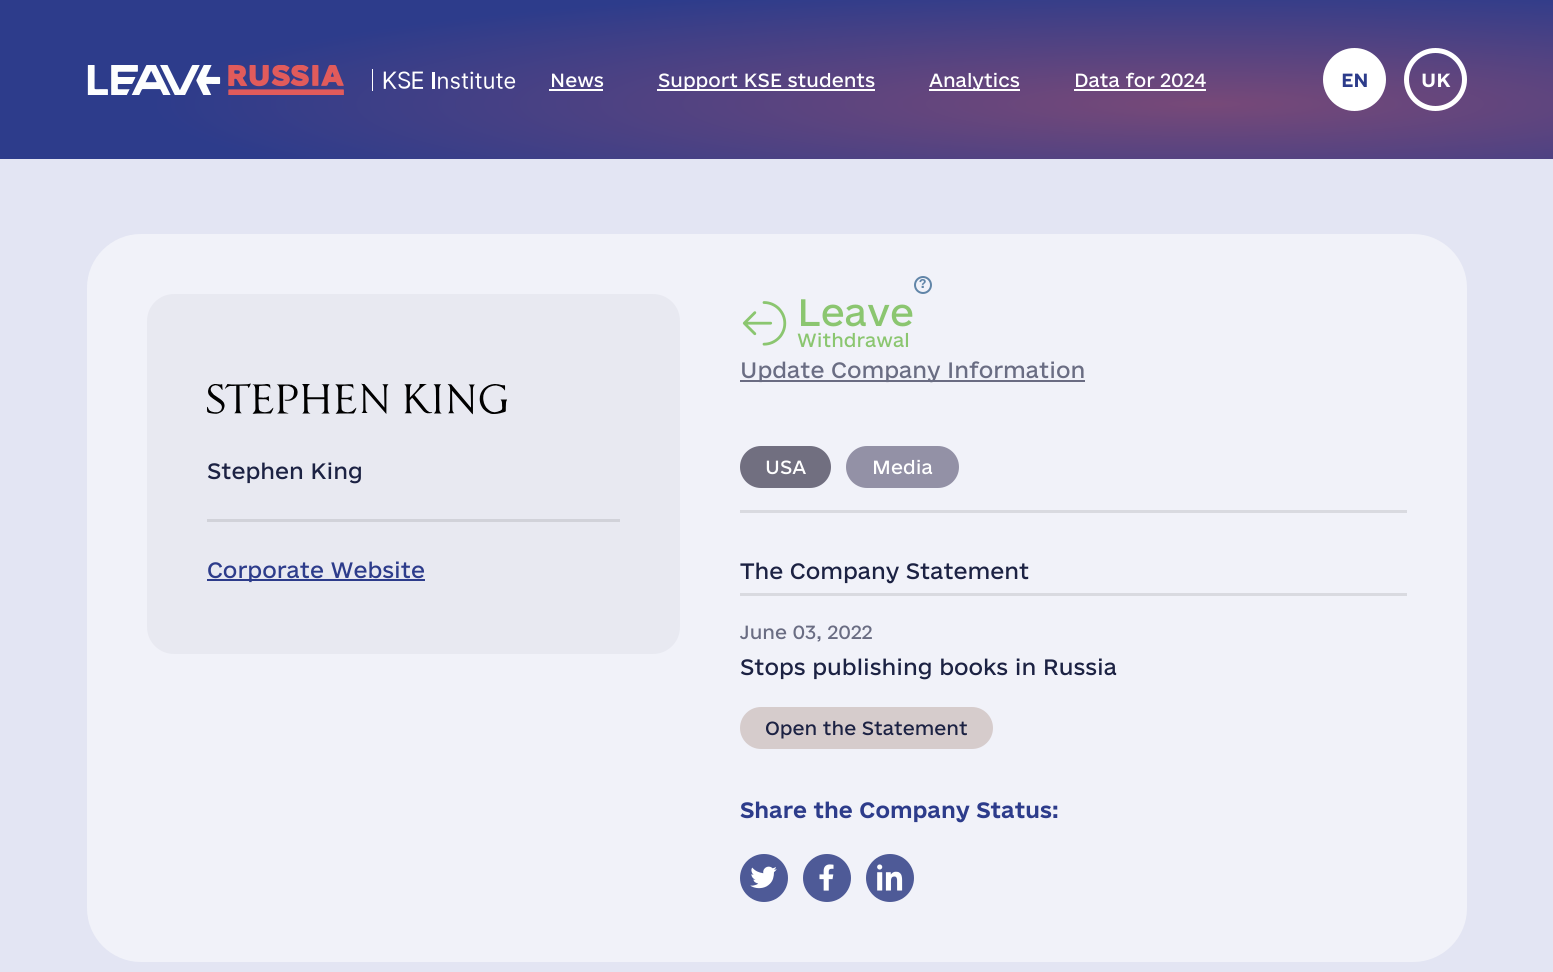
import math
import cairo


def use_color(cr, r, g, b):
  cr.set_source_rgb(r / 255, g / 255, b / 255)

def text(cr, x, y, s, family, size, color, bold=False, italic=False):
  cr.select_font_face(family, cairo.FONT_SLANT_ITALIC if italic else cairo.FONT_SLANT_NORMAL, cairo.FONT_WEIGHT_BOLD if bold else cairo.FONT_WEIGHT_NORMAL)
  cr.set_font_size(size)
  use_color(cr, *color)
  cr.move_to(x, y)
  cr.show_text(s)

def box(cr, x, y, w, h, *color):
  use_color(cr, *color)
  cr.rectangle(x, y, w, h)
  cr.fill()

def round_rect(cr, x, y, w, h, r):
  cr.new_sub_path()
  for i, (u, v) in enumerate([(x + w - r, y + h - r), (x + r, y + h - r), (x + r, y + r), (x + w - r, y + r)]):
    cr.arc(u, v, r, i * math.pi / 2, (i + 1) * math.pi / 2)
  cr.close_path()

def picture(cr, path, x, y, w, h):
  cr.save()
  cr.set_source_surface(cairo.ImageSurface.create_from_png(path), x, y)
  cr.rectangle(x, y, w, h)
  cr.fill()
  cr.restore()

def draw(cr):
  use_color(cr, 227, 229, 243)
  cr.paint()
  gradient = cairo.RadialGradient(0, 0, 0, 0, 0, 1)
  gradient.set_matrix(cairo.Matrix(1 / 2085, 0, 0, 1 / 242, -1 * 1199 / 2085, -1 * 104 / 242))
  gradient.add_color_stop_rgba(0, 0.467, 0.286, 0.471, 1)
  gradient.add_color_stop_rgba(0.5, 0.176, 0.235, 0.545, 1)
  cr.set_source(gradient)
  cr.rectangle(0, 0, 1553, 159)
  cr.fill()
  picture(cr, "img_01.png", 87, 65, 429, 30)
  box(cr, 549, 89, 54, 2, 255, 255, 255)
  box(cr, 657, 89, 218, 2, 255, 255, 255)
  box(cr, 929, 89, 91, 2, 255, 255, 255)
  box(cr, 1074, 89, 132, 2, 255, 255, 255)
  cr.arc(1354.5, 79.5, 29, 0, 2 * math.pi)
  cr.fill_preserve()
  cr.set_line_width(5)
  cr.stroke()
  cr.arc(1435.5, 79.5, 29, 0, 2 * math.pi)
  cr.stroke()
  use_color(cr, 241, 242, 249)
  round_rect(cr, 87, 234, 1380, 728, 54)
  cr.fill()
  use_color(cr, 232, 233, 241)
  round_rect(cr, 147, 294, 533, 360, 27)
  cr.fill()
  picture(cr, "img_02.png", 207, 383, 300, 32)
  box(cr, 207, 519, 413, 3, 209, 210, 217)
  box(cr, 207, 579, 218, 2, 45, 60, 139)
  cr.arc(923, 285, 8, 0, 2 * math.pi)
  use_color(cr, 97, 133, 168)
  cr.set_line_width(2)
  cr.stroke()
  picture(cr, "img_03.png", 742, 301, 45, 45)
  box(cr, 740, 380, 345, 2, 106, 108, 130)
  box(cr, 740, 510, 667, 3, 217, 218, 224)
  use_color(cr, 113, 111, 128)
  round_rect(cr, 742.5, 448.5, 86, 37, 18.5)
  cr.fill_preserve()
  cr.set_line_width(5)
  cr.stroke()
  use_color(cr, 147, 145, 166)
  round_rect(cr, 848.5, 448.5, 108, 37, 18.5)
  cr.fill_preserve()
  cr.stroke()
  box(cr, 740, 593, 667, 3, 217, 218, 224)
  use_color(cr, 214, 204, 204)
  round_rect(cr, 742.5, 709.5, 248, 37, 18.5)
  cr.fill_preserve()
  cr.stroke()
  use_color(cr, 78, 90, 151)
  cr.arc(764, 878, 24, 0, 2 * math.pi)
  cr.fill()
  picture(cr, "img_04.png", 750, 866, 27, 23)
  cr.arc(827, 878, 24, 0, 2 * math.pi)
  cr.fill()
  picture(cr, "img_05.png", 819, 864, 15, 27)
  cr.arc(890, 878, 24, 0, 2 * math.pi)
  cr.fill()
  picture(cr, "img_06.png", 877, 864, 26, 27)
  text(cr, 550, 87, "News", "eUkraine", 18, (255, 255, 255))
  text(cr, 658, 87, "Support KSE students", "eUkraine", 18, (255, 255, 255))
  text(cr, 929, 87, "Analytics", "eUkraine", 18, (255, 255, 255))
  text(cr, 1074, 87, "Data for 2024", "eUkraine", 18, (255, 255, 255))
  text(cr, 1341, 87, "EN", "eUkraine", 18, (45, 60, 139), bold=True)
  text(cr, 1421, 87, "UK", "eUkraine", 18, (255, 255, 255), bold=True)
  text(cr, 207, 479, "Stephen King", "eUkraine", 21, (28, 34, 67))
  text(cr, 207, 578, "Corporate Website", "eUkraine", 21, (45, 60, 139))
  text(cr, 919, 288, "?", "eUkraine", 12, (97, 133, 168), bold=True)
  text(cr, 797, 326, "Leave", "eUkraine", 36, (139, 198, 112))
  text(cr, 797, 347, "Withdrawal", "eUkraine", 18, (139, 198, 112))
  text(cr, 740, 378, "Update Company Information", "eUkraine", 21, (106, 109, 131))
  text(cr, 765, 474, "USA", "eUkraine", 18, (255, 255, 255))
  text(cr, 872, 474, "Media", "eUkraine", 18, (255, 255, 255))
  text(cr, 740, 579, "The Company Statement", "eUkraine", 21, (28, 34, 67))
  text(cr, 740, 639, "June 03, 2022", "eUkraine", 18, (106, 109, 131))
  text(cr, 740, 675, "Stops publishing books in Russia", "eUkraine", 21, (28, 34, 67))
  text(cr, 765, 735, "Open the Statement", "eUkraine", 18, (28, 34, 67))
  text(cr, 740, 818, "Share the Company Status:", "eUkraine", 21, (45, 60, 139), bold=True)


surface = cairo.ImageSurface(cairo.FORMAT_RGB24, 1553, 972)
cr = cairo.Context(surface)
options = cairo.FontOptions()
options.set_hint_metrics(cairo.HINT_METRICS_OFF)
options.set_hint_style(cairo.HINT_STYLE_NONE)
cr.set_font_options(options)
cr.set_miter_limit(4)
draw(cr)
surface.write_to_png("out.png")
